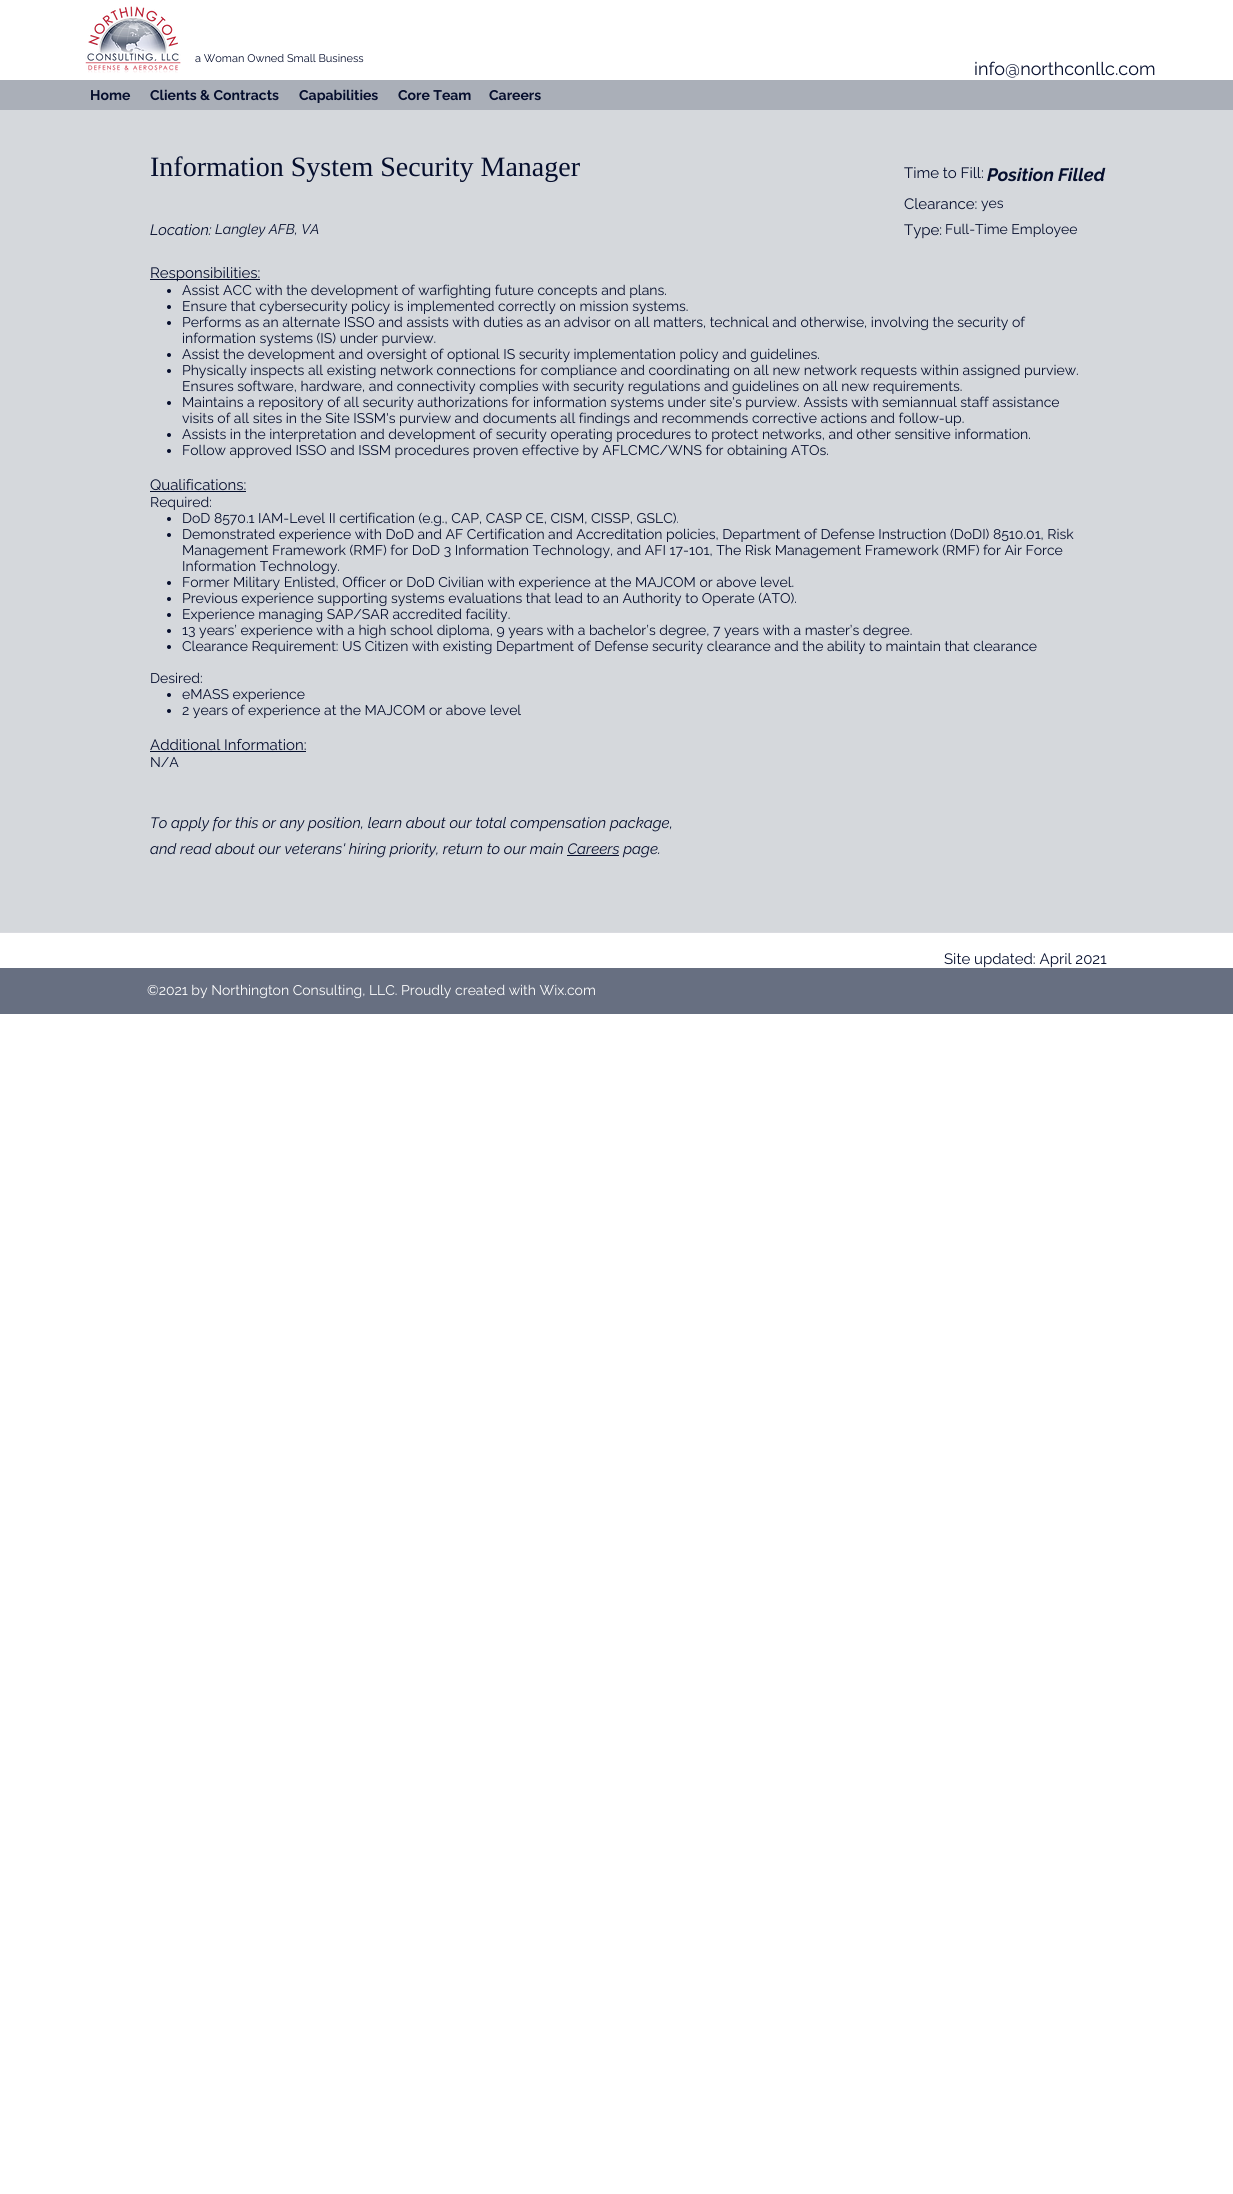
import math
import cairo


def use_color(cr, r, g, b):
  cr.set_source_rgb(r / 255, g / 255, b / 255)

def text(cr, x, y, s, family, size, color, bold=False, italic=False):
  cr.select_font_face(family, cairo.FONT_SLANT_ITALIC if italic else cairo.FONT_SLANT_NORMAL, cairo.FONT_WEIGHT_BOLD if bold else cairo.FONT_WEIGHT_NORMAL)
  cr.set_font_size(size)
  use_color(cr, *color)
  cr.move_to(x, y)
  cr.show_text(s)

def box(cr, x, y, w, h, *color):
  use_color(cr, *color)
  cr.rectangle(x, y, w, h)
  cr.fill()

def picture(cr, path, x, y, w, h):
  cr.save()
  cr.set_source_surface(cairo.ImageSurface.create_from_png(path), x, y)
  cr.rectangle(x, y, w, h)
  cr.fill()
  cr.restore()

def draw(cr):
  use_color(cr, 255, 255, 255)
  cr.paint()
  picture(cr, "img_01.png", 85, 6, 96, 67)
  box(cr, 0, 80, 1233, 30, 170, 175, 184)
  box(cr, 0, 110, 1233, 822, 213, 216, 220)
  box(cr, 150, 279, 110, 1, 6, 15, 46)
  cr.arc(169, 291, 2, 0, 2 * math.pi)
  cr.fill()
  cr.arc(169, 307, 2, 0, 2 * math.pi)
  cr.fill()
  cr.arc(169, 323, 2, 0, 2 * math.pi)
  cr.fill()
  cr.arc(169, 355, 2, 0, 2 * math.pi)
  cr.fill()
  cr.arc(169, 371, 2, 0, 2 * math.pi)
  cr.fill()
  cr.arc(169, 403, 2, 0, 2 * math.pi)
  cr.fill()
  cr.arc(169, 435, 2, 0, 2 * math.pi)
  cr.fill()
  cr.arc(169, 451, 2, 0, 2 * math.pi)
  cr.fill()
  box(cr, 150, 491, 96, 1, 6, 15, 46)
  cr.arc(169, 519, 2, 0, 2 * math.pi)
  cr.fill()
  cr.arc(169, 535, 2, 0, 2 * math.pi)
  cr.fill()
  cr.arc(169, 583, 2, 0, 2 * math.pi)
  cr.fill()
  cr.arc(169, 599, 2, 0, 2 * math.pi)
  cr.fill()
  cr.arc(169, 615, 2, 0, 2 * math.pi)
  cr.fill()
  cr.arc(169, 631, 2, 0, 2 * math.pi)
  cr.fill()
  cr.arc(169, 647, 2, 0, 2 * math.pi)
  cr.fill()
  cr.arc(169, 695, 2, 0, 2 * math.pi)
  cr.fill()
  cr.arc(169, 711, 2, 0, 2 * math.pi)
  cr.fill()
  box(cr, 150, 751, 156, 1, 6, 15, 46)
  box(cr, 567, 855, 52, 1, 6, 15, 46)
  box(cr, 0, 932, 1233, 1, 218, 219, 224)
  box(cr, 0, 968, 1233, 46, 103, 111, 129)
  text(cr, 195, 62, "a Woman Owned Small Business", "Raleway", 11, (6, 15, 46))
  text(cr, 974, 75, "info@northconllc.com", "Raleway", 18, (6, 15, 46))
  text(cr, 90, 100, "Home", "Raleway", 14, (6, 15, 46), bold=True)
  text(cr, 150, 100, "Clients & Contracts", "Raleway", 14, (6, 15, 46), bold=True)
  text(cr, 299, 100, "Capabilities", "Raleway", 14, (6, 15, 46), bold=True)
  text(cr, 398, 100, "Core Team", "Raleway", 14, (6, 15, 46), bold=True)
  text(cr, 489, 100, "Careers", "Raleway", 14, (6, 15, 46), bold=True)
  text(cr, 150, 176, "Information System Security Manager", "Liberation Serif", 28, (6, 15, 46))
  text(cr, 904, 178, "Time to Fill:", "Raleway", 15, (6, 15, 46))
  text(cr, 987, 181, "Position Filled", "Raleway", 18, (6, 15, 46), bold=True, italic=True)
  text(cr, 904, 209, "Clearance:", "Raleway", 15, (6, 15, 46))
  text(cr, 981, 208, "yes", "Raleway", 14, (6, 15, 46))
  text(cr, 150, 235, "Location:", "Raleway", 15, (6, 15, 46), italic=True)
  text(cr, 215, 234, "Langley AFB, VA", "Raleway", 14, (6, 15, 46), italic=True)
  text(cr, 904, 235, "Type:", "Raleway", 15, (6, 15, 46))
  text(cr, 945, 234, "Full-Time Employee", "Raleway", 14, (6, 15, 46))
  text(cr, 150, 278, "Responsibilities:", "Raleway", 15, (6, 15, 46))
  text(cr, 182, 295, "Assist ACC with the development of warfighting future concepts and plans.", "Raleway", 14, (6, 15, 46))
  text(cr, 182, 311, "Ensure that cybersecurity policy is implemented correctly on mission systems.", "Raleway", 14, (6, 15, 46))
  text(cr, 182, 327, "Performs as an alternate ISSO and assists with duties as an advisor on all matters, technical and otherwise, involving the security of", "Raleway", 14, (6, 15, 46))
  text(cr, 182, 343, "information systems (IS) under purview.", "Raleway", 14, (6, 15, 46))
  text(cr, 182, 359, "Assist the development and oversight of optional IS security implementation policy and guidelines.", "Raleway", 14, (6, 15, 46))
  text(cr, 182, 375, "Physically inspects all existing network connections for compliance and coordinating on all new network requests within assigned purview.", "Raleway", 14, (6, 15, 46))
  text(cr, 182, 391, "Ensures software, hardware, and connectivity complies with security regulations and guidelines on all new requirements.", "Raleway", 14, (6, 15, 46))
  text(cr, 182, 407, "Maintains a repository of all security authorizations for information systems under site's purview. Assists with semiannual staff assistance", "Raleway", 14, (6, 15, 46))
  text(cr, 182, 423, "visits of all sites in the Site ISSM's purview and documents all findings and recommends corrective actions and follow-up.", "Raleway", 14, (6, 15, 46))
  text(cr, 182, 439, "Assists in the interpretation and development of security operating procedures to protect networks, and other sensitive information.", "Raleway", 14, (6, 15, 46))
  text(cr, 182, 455, "Follow approved ISSO and ISSM procedures proven effective by AFLCMC/WNS for obtaining ATOs.", "Raleway", 14, (6, 15, 46))
  text(cr, 150, 490, "Qualifications:", "Raleway", 15, (6, 15, 46))
  text(cr, 150, 507, "Required:", "Raleway", 14, (6, 15, 46))
  text(cr, 182, 523, "DoD 8570.1 IAM-Level II certification (e.g., CAP, CASP CE, CISM, CISSP, GSLC).", "Raleway", 14, (6, 15, 46))
  text(cr, 182, 539, "Demonstrated experience with DoD and AF Certification and Accreditation policies, Department of Defense Instruction (DoDI) 8510.01, Risk", "Raleway", 14, (6, 15, 46))
  text(cr, 182, 555, "Management Framework (RMF) for DoD 3 Information Technology, and AFI 17-101, The Risk Management Framework (RMF) for Air Force", "Raleway", 14, (6, 15, 46))
  text(cr, 182, 571, "Information Technology.", "Raleway", 14, (6, 15, 46))
  text(cr, 182, 587, "Former Military Enlisted, Officer or DoD Civilian with experience at the MAJCOM or above level.", "Raleway", 14, (6, 15, 46))
  text(cr, 182, 603, "Previous experience supporting systems evaluations that lead to an Authority to Operate (ATO).", "Raleway", 14, (6, 15, 46))
  text(cr, 182, 619, "Experience managing SAP/SAR accredited facility.", "Raleway", 14, (6, 15, 46))
  text(cr, 182, 635, "13 years’ experience with a high school diploma, 9 years with a bachelor’s degree, 7 years with a master’s degree.", "Raleway", 14, (6, 15, 46))
  text(cr, 182, 651, "Clearance Requirement: US Citizen with existing Department of Defense security clearance and the ability to maintain that clearance", "Raleway", 14, (6, 15, 46))
  text(cr, 150, 683, "Desired:", "Raleway", 14, (6, 15, 46))
  text(cr, 182, 699, "eMASS experience", "Raleway", 14, (6, 15, 46))
  text(cr, 182, 715, "2 years of experience at the MAJCOM or above level", "Raleway", 14, (6, 15, 46))
  text(cr, 150, 750, "Additional Information:", "Raleway", 15, (6, 15, 46))
  text(cr, 150, 767, "N/A", "Raleway", 14, (6, 15, 46))
  text(cr, 150, 828, "To apply for this or any position, learn about our total compensation package,", "Raleway", 15, (6, 15, 46), italic=True)
  text(cr, 150, 854, "and read about our veterans' hiring priority, return to our main Careers page.", "Raleway", 15, (6, 15, 46), italic=True)
  text(cr, 944, 964, "Site updated: April 2021", "Raleway", 15, (6, 15, 46))
  text(cr, 147, 995, "©2021 by Northington Consulting, LLC. Proudly created with Wix.com", "Raleway", 14, (255, 255, 255))


surface = cairo.ImageSurface(cairo.FORMAT_RGB24, 1233, 2194)
cr = cairo.Context(surface)
options = cairo.FontOptions()
options.set_hint_metrics(cairo.HINT_METRICS_OFF)
options.set_hint_style(cairo.HINT_STYLE_NONE)
cr.set_font_options(options)
cr.set_miter_limit(4)
draw(cr)
surface.write_to_png("out.png")
